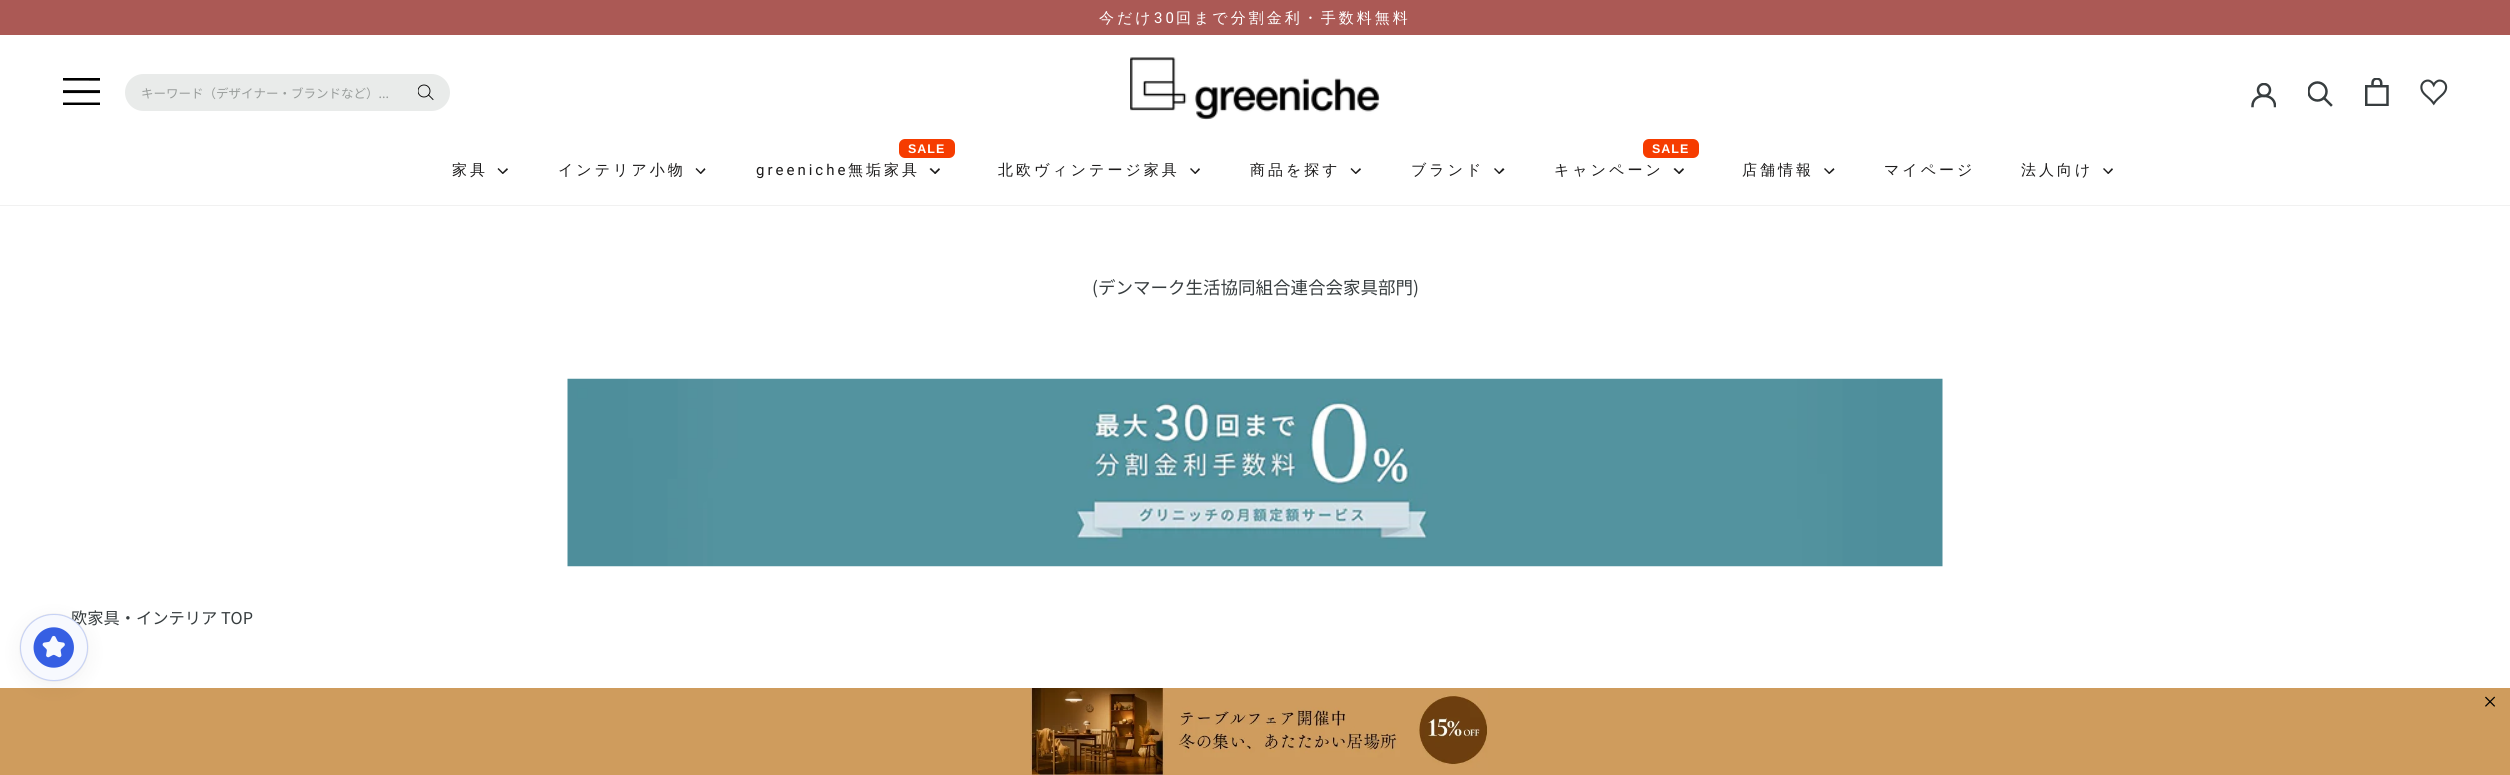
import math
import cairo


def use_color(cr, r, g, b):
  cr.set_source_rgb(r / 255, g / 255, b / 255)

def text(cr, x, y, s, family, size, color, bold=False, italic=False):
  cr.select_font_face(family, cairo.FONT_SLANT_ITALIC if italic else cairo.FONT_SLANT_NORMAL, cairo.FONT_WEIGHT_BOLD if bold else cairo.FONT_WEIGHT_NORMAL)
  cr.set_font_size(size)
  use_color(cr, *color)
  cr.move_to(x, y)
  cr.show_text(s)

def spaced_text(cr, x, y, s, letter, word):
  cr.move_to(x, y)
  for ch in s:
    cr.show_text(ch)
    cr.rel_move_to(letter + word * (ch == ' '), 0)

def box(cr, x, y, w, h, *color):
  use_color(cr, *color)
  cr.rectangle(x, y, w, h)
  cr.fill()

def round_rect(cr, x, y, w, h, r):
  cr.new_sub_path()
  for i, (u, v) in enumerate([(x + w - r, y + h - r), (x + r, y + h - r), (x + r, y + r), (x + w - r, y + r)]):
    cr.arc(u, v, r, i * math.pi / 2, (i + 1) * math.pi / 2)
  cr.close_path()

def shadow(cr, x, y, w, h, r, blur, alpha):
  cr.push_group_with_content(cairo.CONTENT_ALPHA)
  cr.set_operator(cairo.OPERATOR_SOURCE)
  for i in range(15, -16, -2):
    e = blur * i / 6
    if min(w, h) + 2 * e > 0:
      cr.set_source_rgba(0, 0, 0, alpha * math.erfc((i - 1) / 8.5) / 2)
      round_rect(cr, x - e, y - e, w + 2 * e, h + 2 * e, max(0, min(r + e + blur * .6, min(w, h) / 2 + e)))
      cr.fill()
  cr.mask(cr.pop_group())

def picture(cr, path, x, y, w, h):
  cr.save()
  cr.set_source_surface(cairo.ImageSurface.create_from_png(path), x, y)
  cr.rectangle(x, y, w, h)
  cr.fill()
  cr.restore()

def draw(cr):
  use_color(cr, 255, 255, 255)
  cr.paint()
  box(cr, 0, 688, 2510, 87, 207, 156, 93)
  use_color(cr, 0, 0, 0)
  shadow(cr, 20, 619, 68, 67, 33.5, 10, 0.05)
  shadow(cr, 20, 614, 68, 67, 33.5, 0.5, 0.15)
  box(cr, 0, 0, 2510, 35, 171, 89, 85)
  box(cr, 0, 205, 2510, 1, 241, 241, 241)
  picture(cr, "img_02.png", 1130, 57, 250, 63)
  cr.save()
  cr.rectangle(2251, 83, 25, 25)
  cr.clip()
  cr.new_path()
  cr.move_to(2252.5, 106)
  cr.curve_to(2252.5, 92.5, 2275, 92.5, 2275, 106)
  use_color(cr, 55, 61, 63)
  cr.set_line_width(2.5)
  cr.set_line_cap(cairo.LINE_CAP_SQUARE)
  cr.stroke()
  cr.arc(2264, 90, 6, 0, 2 * math.pi)
  cr.set_line_cap(cairo.LINE_CAP_BUTT)
  cr.stroke()
  cr.restore()
  cr.new_path()
  cr.move_to(2331, 105)
  cr.line_to(2324, 98)
  use_color(cr, 55, 61, 63)
  cr.set_line_width(2.5)
  cr.set_line_cap(cairo.LINE_CAP_SQUARE)
  cr.stroke()
  cr.save()
  cr.rectangle(2308, 81, 26, 27)
  cr.clip()
  cr.arc(2317.5, 91.5, 9, 0, 2 * math.pi)
  cr.set_line_cap(cairo.LINE_CAP_BUTT)
  cr.stroke()
  cr.restore()
  picture(cr, "img_03.png", 2365, 78, 24, 28)
  picture(cr, "img_04.png", 2420, 79, 28, 27)
  picture(cr, "img_05.png", 63, 78, 37, 27)
  use_color(cr, 233, 235, 234)
  round_rect(cr, 125, 74, 325, 37, 18.5)
  cr.fill()
  cr.new_path()
  cr.move_to(433, 99.5)
  cr.line_to(428.5, 95)
  use_color(cr, 0, 0, 0)
  cr.set_line_width(0.9)
  cr.stroke()
  cr.save()
  cr.rectangle(418, 84, 16, 16)
  cr.clip()
  cr.arc(424, 91, 6, 0, 2 * math.pi)
  cr.set_line_cap(cairo.LINE_CAP_BUTT)
  cr.stroke()
  cr.restore()
  use_color(cr, 28, 27, 27)
  cr.new_path()
  cr.move_to(507, 168)
  cr.line_to(508, 169.5)
  cr.line_to(503, 174)
  cr.line_to(502, 173)
  cr.close_path()
  cr.fill()
  cr.new_path()
  cr.move_to(498.5, 168)
  cr.line_to(503.5, 173)
  cr.line_to(502.5, 174)
  cr.line_to(497.5, 169)
  cr.close_path()
  cr.fill()
  cr.new_path()
  cr.move_to(704.5, 168)
  cr.line_to(705.5, 169.5)
  cr.line_to(701, 174)
  cr.line_to(700, 173)
  cr.close_path()
  cr.fill()
  cr.new_path()
  cr.move_to(696.5, 168)
  cr.line_to(701.5, 173)
  cr.line_to(700.5, 174)
  cr.line_to(695.5, 169)
  cr.close_path()
  cr.fill()
  use_color(cr, 246, 60, 0)
  round_rect(cr, 899, 139, 56, 19, 6)
  cr.fill()
  use_color(cr, 28, 27, 27)
  cr.new_path()
  cr.move_to(939, 168)
  cr.line_to(940, 169.5)
  cr.line_to(935.5, 174)
  cr.line_to(934, 173)
  cr.close_path()
  cr.fill()
  cr.new_path()
  cr.move_to(931, 168)
  cr.line_to(936, 173)
  cr.line_to(935, 174)
  cr.line_to(929.5, 169)
  cr.close_path()
  cr.fill()
  cr.new_path()
  cr.move_to(1199, 168)
  cr.line_to(1200, 169.5)
  cr.line_to(1195.5, 174)
  cr.line_to(1194.5, 173)
  cr.close_path()
  cr.fill()
  cr.new_path()
  cr.move_to(1191, 168)
  cr.line_to(1196, 173)
  cr.line_to(1195, 174)
  cr.line_to(1190, 169)
  cr.close_path()
  cr.fill()
  cr.new_path()
  cr.move_to(1360, 168)
  cr.line_to(1361, 169.5)
  cr.line_to(1356, 174)
  cr.line_to(1355, 173)
  cr.close_path()
  cr.fill()
  cr.new_path()
  cr.move_to(1351.5, 168)
  cr.line_to(1356.5, 173)
  cr.line_to(1355.5, 174)
  cr.line_to(1350.5, 169)
  cr.close_path()
  cr.fill()
  cr.new_path()
  cr.move_to(1503, 168)
  cr.line_to(1504.5, 169.5)
  cr.line_to(1499.5, 174)
  cr.line_to(1498.5, 173)
  cr.close_path()
  cr.fill()
  cr.new_path()
  cr.move_to(1495, 168)
  cr.line_to(1500, 173)
  cr.line_to(1499, 174)
  cr.line_to(1494, 169)
  cr.close_path()
  cr.fill()
  use_color(cr, 246, 60, 0)
  round_rect(cr, 1643, 139, 56, 19, 6)
  cr.fill()
  use_color(cr, 28, 27, 27)
  cr.new_path()
  cr.move_to(1683, 168)
  cr.line_to(1684, 169.5)
  cr.line_to(1679.5, 174)
  cr.line_to(1678, 173)
  cr.close_path()
  cr.fill()
  cr.new_path()
  cr.move_to(1675, 168)
  cr.line_to(1680, 173)
  cr.line_to(1679, 174)
  cr.line_to(1673.5, 169)
  cr.close_path()
  cr.fill()
  cr.new_path()
  cr.move_to(1833.5, 168)
  cr.line_to(1834.5, 169.5)
  cr.line_to(1829.5, 174)
  cr.line_to(1828.5, 173)
  cr.close_path()
  cr.fill()
  cr.new_path()
  cr.move_to(1825, 168)
  cr.line_to(1830, 173)
  cr.line_to(1829, 174)
  cr.line_to(1824, 169)
  cr.close_path()
  cr.fill()
  cr.new_path()
  cr.move_to(2112, 168)
  cr.line_to(2113, 169.5)
  cr.line_to(2108.5, 174)
  cr.line_to(2107.5, 173)
  cr.close_path()
  cr.fill()
  cr.new_path()
  cr.move_to(2104, 168)
  cr.line_to(2109, 173)
  cr.line_to(2108, 174)
  cr.line_to(2103, 169)
  cr.close_path()
  cr.fill()
  picture(cr, "img_06.png", 567, 378, 1376, 189)
  picture(cr, "img_07.png", 1030, 688, 458, 87)
  cr.select_font_face("WenQuanYi Zen Hei Medium")
  cr.set_font_size(15)
  use_color(cr, 255, 255, 255)
  spaced_text(cr, 1099, 23, "今だけ", 3, 0)
  cr.select_font_face("Roboto")
  spaced_text(cr, 1154, 23, "30", 3, 0)
  cr.select_font_face("WenQuanYi Zen Hei Medium")
  spaced_text(cr, 1176, 23, "回まで分割金利・手数料無料", 3, 0)
  text(cr, 141, 98, "キーワード（デザイナー・ブランドなど）...", "Noto Sans JP", 12.5, (153, 157, 155))
  cr.select_font_face("WenQuanYi Zen Hei Medium")
  cr.set_font_size(15)
  use_color(cr, 28, 27, 27)
  spaced_text(cr, 452, 175, "家具", 3, 0)
  spaced_text(cr, 558, 175, "インテリア小物", 3, 0)
  cr.select_font_face("Liberation Sans", cairo.FONT_SLANT_NORMAL, cairo.FONT_WEIGHT_BOLD)
  cr.set_font_size(12.5)
  use_color(cr, 255, 255, 255)
  spaced_text(cr, 908, 153, "SALE", 1, 0)
  cr.select_font_face("Roboto")
  cr.set_font_size(15)
  use_color(cr, 28, 27, 27)
  spaced_text(cr, 756, 175, "greeniche", 3, 0)
  cr.select_font_face("WenQuanYi Zen Hei Medium")
  spaced_text(cr, 848, 175, "無垢家具", 3, 0)
  spaced_text(cr, 998, 175, "北欧ヴィンテージ家具", 3, 0)
  spaced_text(cr, 1250, 175, "商品を探す", 3, 0)
  spaced_text(cr, 1411, 175, "ブランド", 3, 0)
  cr.select_font_face("Liberation Sans", cairo.FONT_SLANT_NORMAL, cairo.FONT_WEIGHT_BOLD)
  cr.set_font_size(12.5)
  use_color(cr, 255, 255, 255)
  spaced_text(cr, 1652, 153, "SALE", 1, 0)
  cr.select_font_face("WenQuanYi Zen Hei Medium")
  cr.set_font_size(15)
  use_color(cr, 28, 27, 27)
  spaced_text(cr, 1554, 175, "キャンペーン", 3, 0)
  spaced_text(cr, 1742, 175, "店舗情報", 3, 0)
  spaced_text(cr, 1884, 175, "マイページ", 3, 0)
  spaced_text(cr, 2021, 175, "法人向け", 3, 0)
  text(cr, 1092, 294, "(デンマーク生活協同組合連合会家具部門)", "Noto Sans JP", 17.5, (55, 61, 63))
  text(cr, 71, 624, "欧家具・インテリア TOP", "Noto Sans JP", 16.25, (55, 61, 63))
  use_color(cr, 247, 249, 254)
  round_rect(cr, 20, 614, 68, 67, 33.5)
  cr.fill()
  round_rect(cr, 20.5, 614.5, 67, 66, 33)
  cr.set_source_rgba(0.212, 0.373, 0.89, 0.25)
  cr.set_line_width(1)
  cr.set_line_cap(cairo.LINE_CAP_BUTT)
  cr.stroke()
  picture(cr, "img_01.png", 33, 627, 41, 41)
  text(cr, 2483, 710, "×", "Liberation Serif", 25, (0, 0, 0))


surface = cairo.ImageSurface(cairo.FORMAT_RGB24, 2510, 775)
cr = cairo.Context(surface)
options = cairo.FontOptions()
options.set_hint_metrics(cairo.HINT_METRICS_OFF)
options.set_hint_style(cairo.HINT_STYLE_NONE)
cr.set_font_options(options)
cr.set_miter_limit(4)
draw(cr)
surface.write_to_png("out.png")
